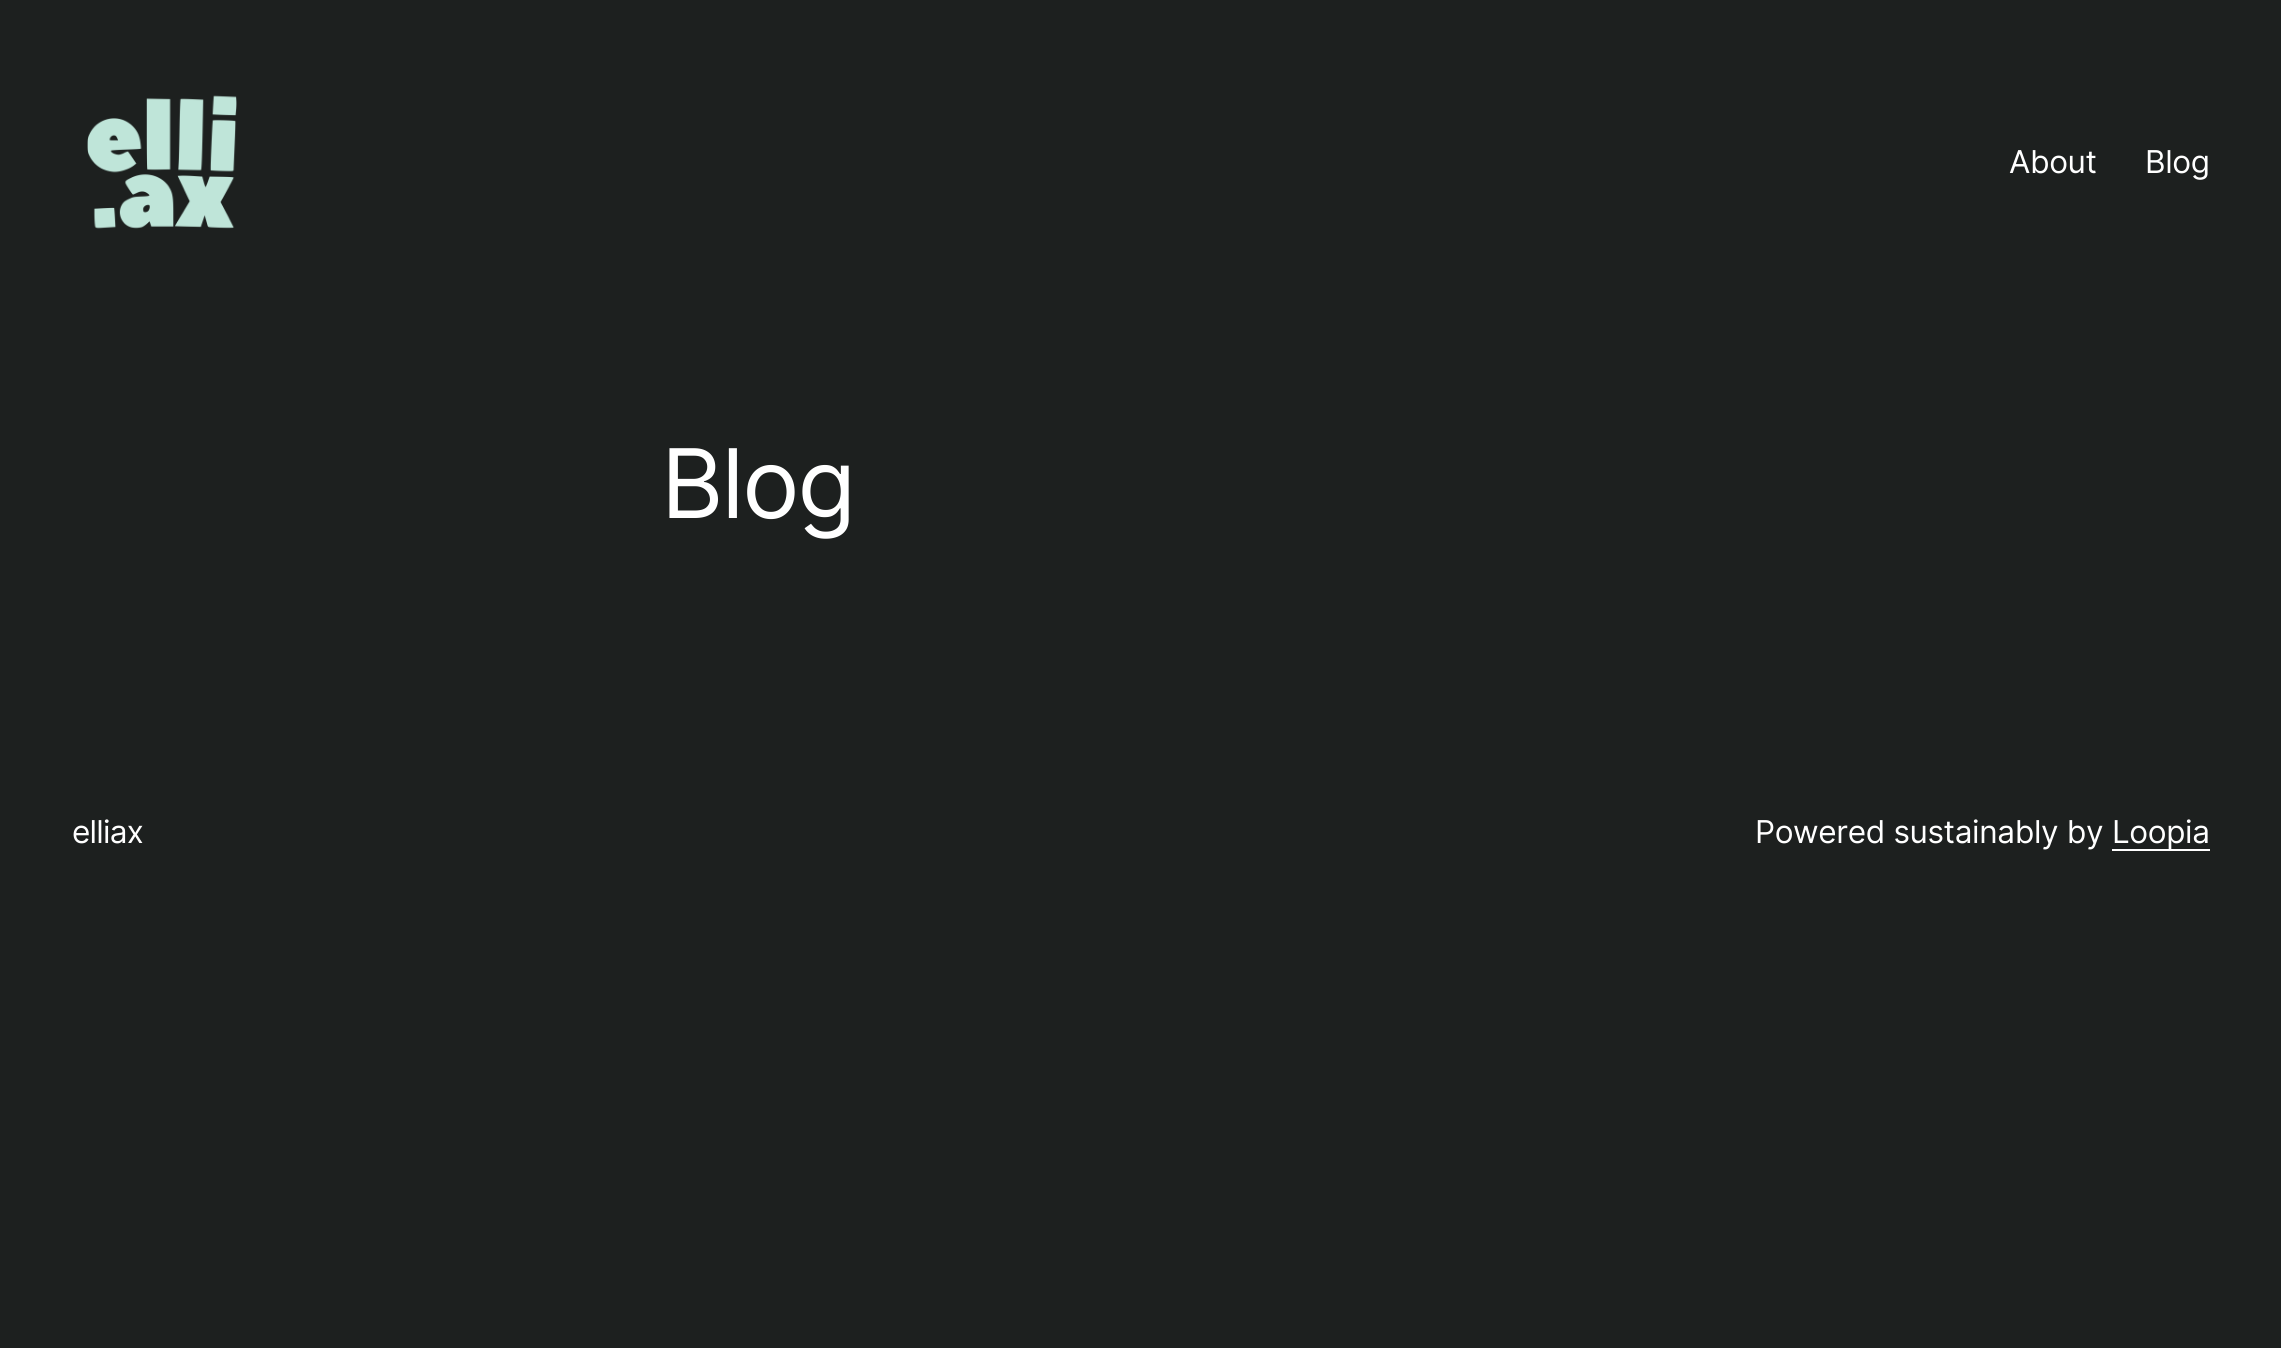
import math
import cairo


def use_color(cr, r, g, b):
  cr.set_source_rgb(r / 255, g / 255, b / 255)

def spaced_text(cr, x, y, s, letter, word):
  cr.move_to(x, y)
  for ch in s:
    cr.show_text(ch)
    cr.rel_move_to(letter + word * (ch == ' '), 0)

def box(cr, x, y, w, h, *color):
  use_color(cr, *color)
  cr.rectangle(x, y, w, h)
  cr.fill()

def picture(cr, path, x, y, w, h):
  cr.save()
  cr.set_source_surface(cairo.ImageSurface.create_from_png(path), x, y)
  cr.rectangle(x, y, w, h)
  cr.fill()
  cr.restore()

def draw(cr):
  use_color(cr, 29, 32, 31)
  cr.paint()
  picture(cr, "img_01.png", 87, 95, 150, 134)
  box(cr, 2112, 849, 98, 2, 255, 255, 255)
  cr.select_font_face("Inter", cairo.FONT_SLANT_ITALIC)
  cr.set_font_size(31.5)
  spaced_text(cr, 2009, 173, "About", -0.35, 0)
  spaced_text(cr, 2145, 173, "Blog", -0.35, 0)
  cr.set_font_size(96)
  spaced_text(cr, 661, 518, "Blog", -2, 0)
  cr.set_font_size(31.5)
  spaced_text(cr, 72, 843, "elliax", -0.75, 0)
  spaced_text(cr, 1755, 843, "Powered sustainably by", -0.35, 0)
  spaced_text(cr, 2112, 843, "Loopia", -0.35, 0)


surface = cairo.ImageSurface(cairo.FORMAT_RGB24, 2281, 1348)
cr = cairo.Context(surface)
options = cairo.FontOptions()
options.set_hint_metrics(cairo.HINT_METRICS_OFF)
options.set_hint_style(cairo.HINT_STYLE_NONE)
cr.set_font_options(options)
cr.set_miter_limit(4)
draw(cr)
surface.write_to_png("out.png")
